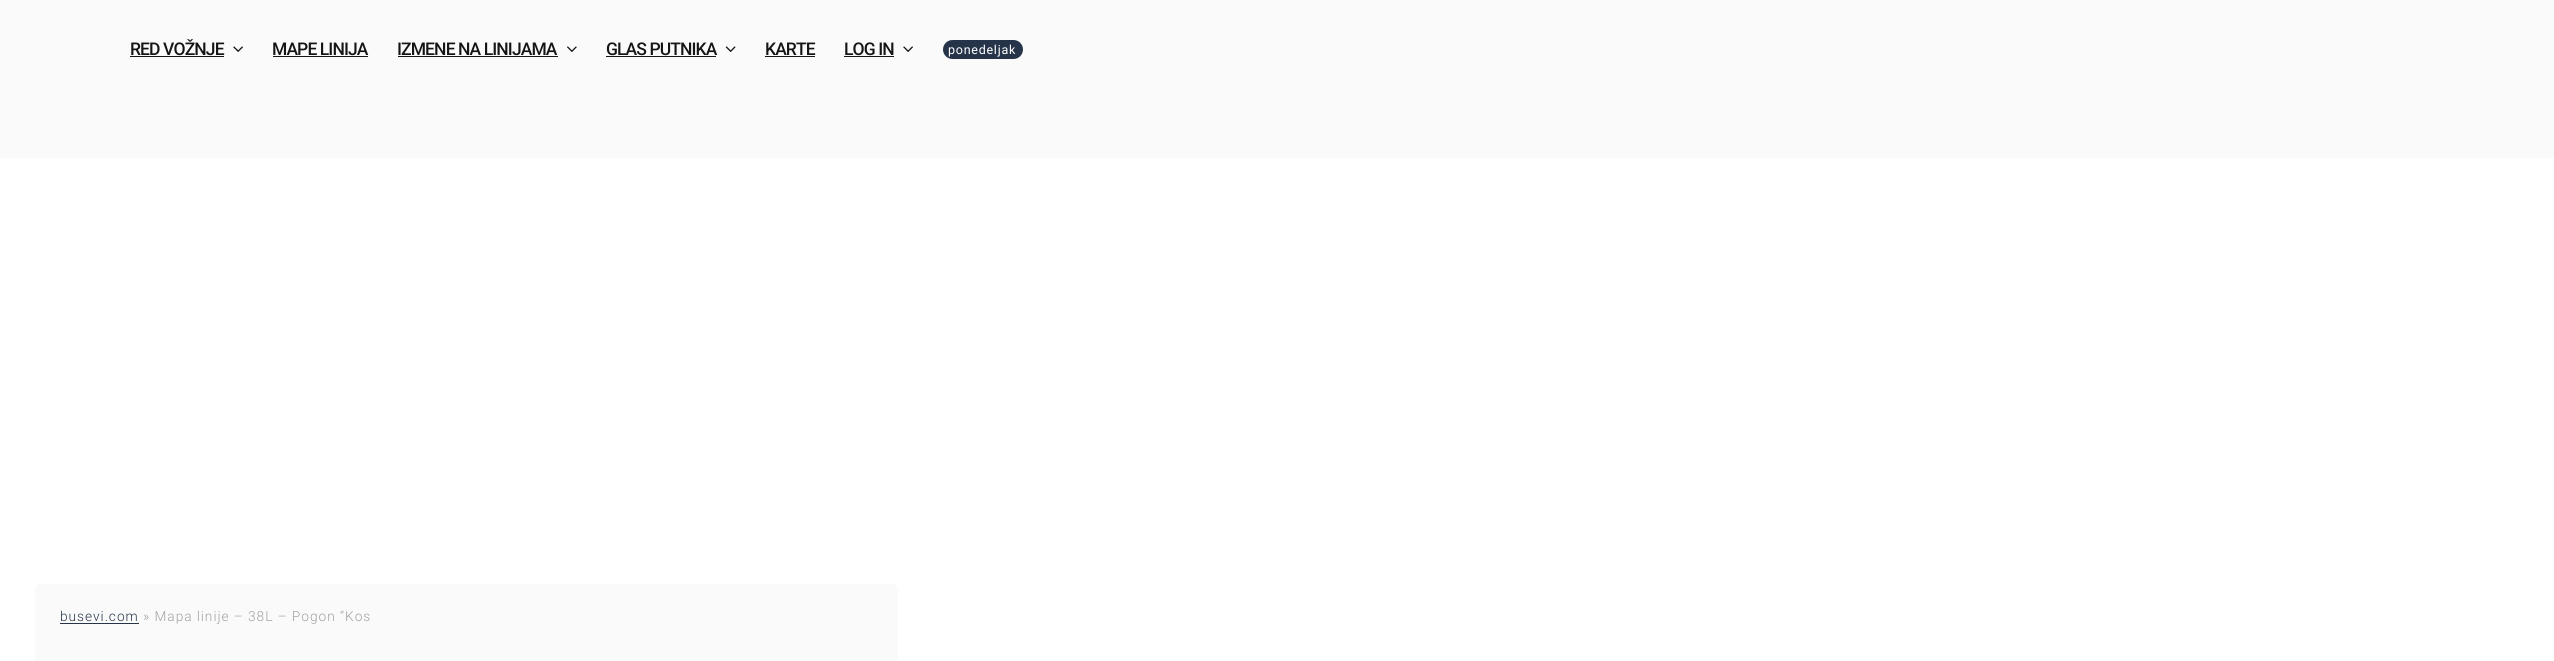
import math
import cairo


def use_color(cr, r, g, b):
  cr.set_source_rgb(r / 255, g / 255, b / 255)

def spaced_text(cr, x, y, s, letter, word):
  cr.move_to(x, y)
  for ch in s:
    cr.show_text(ch)
    cr.rel_move_to(letter + word * (ch == ' '), 0)

def box(cr, x, y, w, h, *color):
  use_color(cr, *color)
  cr.rectangle(x, y, w, h)
  cr.fill()

def round_rect(cr, x, y, w, h, r):
  cr.new_sub_path()
  for i, (u, v) in enumerate([(x + w - r, y + h - r), (x + r, y + h - r), (x + r, y + r), (x + w - r, y + r)]):
    cr.arc(u, v, r, i * math.pi / 2, (i + 1) * math.pi / 2)
  cr.close_path()

def picture(cr, path, x, y, w, h):
  cr.save()
  cr.set_source_surface(cairo.ImageSurface.create_from_png(path), x, y)
  cr.rectangle(x, y, w, h)
  cr.fill()
  cr.restore()

def draw(cr):
  use_color(cr, 255, 255, 255)
  cr.paint()
  box(cr, 0, 0, 2554, 158, 250, 250, 250)
  box(cr, 130, 56, 94, 1, 21, 21, 21)
  picture(cr, "img_01.png", 233, 46, 10, 6)
  box(cr, 273, 56, 95, 1, 21, 21, 21)
  box(cr, 398, 56, 160, 1, 21, 21, 21)
  picture(cr, "img_02.png", 567, 46, 10, 6)
  box(cr, 606, 56, 110, 1, 21, 21, 21)
  picture(cr, "img_03.png", 725, 46, 11, 6)
  box(cr, 765, 56, 50, 1, 21, 21, 21)
  box(cr, 844, 56, 50, 1, 21, 21, 21)
  picture(cr, "img_01.png", 903, 46, 10, 6)
  use_color(cr, 38, 52, 74)
  round_rect(cr, 943, 40, 80, 19, 9.5)
  cr.fill()
  use_color(cr, 250, 250, 250)
  round_rect(cr, 35, 584, 863, 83, 6)
  cr.fill()
  box(cr, 60, 623, 79, 1, 38, 52, 74)
  cr.select_font_face("Roboto Medium")
  cr.set_font_size(17.5)
  use_color(cr, 21, 21, 21)
  spaced_text(cr, 130, 55, "RED VOŽNJE", -0.9, 0)
  spaced_text(cr, 272, 55, "MAPE LINIJA", -0.9, 0)
  spaced_text(cr, 397, 55, "IZMENE NA LINIJAMA", -0.9, 0)
  spaced_text(cr, 606, 55, "GLAS PUTNIKA", -0.9, 0)
  spaced_text(cr, 765, 55, "KARTE", -0.9, 0)
  spaced_text(cr, 844, 55, "LOG IN", -0.9, 0)
  cr.select_font_face("Roboto")
  cr.set_font_size(12.5)
  use_color(cr, 255, 255, 255)
  spaced_text(cr, 948, 54, "ponedeljak", 0.75, 0)
  cr.select_font_face("Roboto Light")
  cr.set_font_size(13.75)
  use_color(cr, 38, 52, 74)
  spaced_text(cr, 60, 621, "busevi.com", 0.95, 0)
  use_color(cr, 159, 160, 163)
  spaced_text(cr, 143, 621, "» Mapa linije – 38L – Pogon “Kos", 0.95, 0)


surface = cairo.ImageSurface(cairo.FORMAT_RGB24, 2554, 661)
cr = cairo.Context(surface)
options = cairo.FontOptions()
options.set_hint_metrics(cairo.HINT_METRICS_OFF)
options.set_hint_style(cairo.HINT_STYLE_NONE)
cr.set_font_options(options)
cr.set_miter_limit(4)
draw(cr)
surface.write_to_png("out.png")
